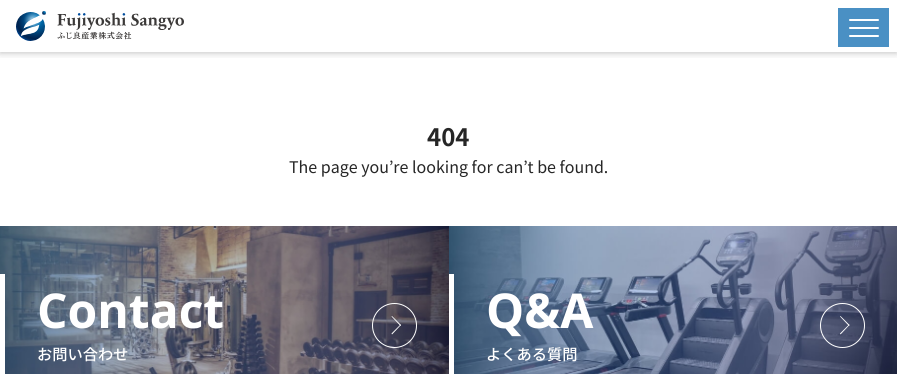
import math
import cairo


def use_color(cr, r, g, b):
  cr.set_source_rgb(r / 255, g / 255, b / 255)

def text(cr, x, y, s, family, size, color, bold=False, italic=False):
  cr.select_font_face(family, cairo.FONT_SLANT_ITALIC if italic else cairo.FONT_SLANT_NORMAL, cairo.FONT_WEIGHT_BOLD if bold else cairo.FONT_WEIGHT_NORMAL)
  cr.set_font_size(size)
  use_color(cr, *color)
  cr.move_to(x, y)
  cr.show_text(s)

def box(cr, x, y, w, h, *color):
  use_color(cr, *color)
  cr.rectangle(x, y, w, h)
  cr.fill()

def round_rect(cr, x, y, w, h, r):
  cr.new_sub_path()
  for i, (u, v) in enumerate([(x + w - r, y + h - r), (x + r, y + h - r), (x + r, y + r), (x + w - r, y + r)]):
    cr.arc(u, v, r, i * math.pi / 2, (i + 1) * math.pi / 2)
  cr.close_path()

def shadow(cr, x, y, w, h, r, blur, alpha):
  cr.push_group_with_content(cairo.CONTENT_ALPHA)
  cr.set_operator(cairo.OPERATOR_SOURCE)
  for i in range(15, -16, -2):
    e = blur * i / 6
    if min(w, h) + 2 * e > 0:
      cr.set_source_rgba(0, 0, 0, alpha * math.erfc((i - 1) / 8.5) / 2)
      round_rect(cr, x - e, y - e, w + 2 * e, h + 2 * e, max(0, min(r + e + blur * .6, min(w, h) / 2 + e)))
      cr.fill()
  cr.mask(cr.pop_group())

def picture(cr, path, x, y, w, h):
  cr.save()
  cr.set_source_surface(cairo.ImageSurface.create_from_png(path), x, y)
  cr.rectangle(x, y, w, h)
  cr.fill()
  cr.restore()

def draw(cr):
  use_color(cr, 255, 255, 255)
  cr.paint()
  cr.save()
  cr.rectangle(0, 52, 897, 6)
  cr.clip()
  use_color(cr, 0, 0, 0)
  shadow(cr, 0, 0, 897, 52, 0, 4, 0.3)
  cr.restore()
  picture(cr, "img_01.png", 16, 11, 168, 30)
  box(cr, 838, 8, 51, 39, 74, 144, 196)
  use_color(cr, 255, 255, 255)
  round_rect(cr, 849, 19, 30, 2, 1)
  cr.fill()
  round_rect(cr, 849, 27, 30, 2, 1)
  cr.fill()
  round_rect(cr, 849, 35, 30, 2, 1)
  cr.fill()
  picture(cr, "img_02.png", 0, 226, 449, 148)
  box(cr, 0, 274, 5, 100, 255, 255, 255)
  cr.arc(394.5, 325.5, 22, 0, 2 * math.pi)
  cr.set_line_width(1)
  cr.stroke()
  cr.new_path()
  cr.move_to(391.5, 316.5)
  cr.line_to(392, 316)
  cr.line_to(401, 325)
  cr.line_to(400.5, 326)
  cr.close_path()
  cr.fill()
  cr.new_path()
  cr.move_to(391.5, 333.5)
  cr.line_to(400.5, 324.5)
  cr.line_to(401, 325)
  cr.line_to(392, 334.5)
  cr.close_path()
  cr.fill()
  picture(cr, "img_03.png", 449, 226, 448, 148)
  box(cr, 449, 274, 5, 100, 255, 255, 255)
  cr.arc(842.5, 325.5, 22, 0, 2 * math.pi)
  cr.stroke()
  cr.new_path()
  cr.move_to(840, 316.5)
  cr.line_to(840.5, 316)
  cr.line_to(849.5, 325)
  cr.line_to(849, 326)
  cr.close_path()
  cr.fill()
  cr.new_path()
  cr.move_to(840, 333.5)
  cr.line_to(849, 324.5)
  cr.line_to(849.5, 325)
  cr.line_to(840.5, 334.5)
  cr.close_path()
  cr.fill()
  text(cr, 427, 146, "404", "Noto Sans JP", 24, (38, 38, 38), bold=True)
  text(cr, 289, 173, "The page you’re looking for can’t be found.", "Noto Sans JP", 16, (38, 38, 38))
  text(cr, 37, 328, "Contact", "Open Sans", 48, (255, 255, 255), bold=True)
  text(cr, 37, 360, "お問い合わせ", "Noto Sans JP Medium", 15.25, (255, 255, 255))
  text(cr, 486, 328, "Q&A", "Open Sans", 48, (255, 255, 255), bold=True)
  text(cr, 486, 360, "よくある質問", "Noto Sans JP Medium", 15.25, (255, 255, 255))


surface = cairo.ImageSurface(cairo.FORMAT_RGB24, 897, 374)
cr = cairo.Context(surface)
options = cairo.FontOptions()
options.set_hint_metrics(cairo.HINT_METRICS_OFF)
options.set_hint_style(cairo.HINT_STYLE_NONE)
cr.set_font_options(options)
cr.set_miter_limit(4)
draw(cr)
surface.write_to_png("out.png")
